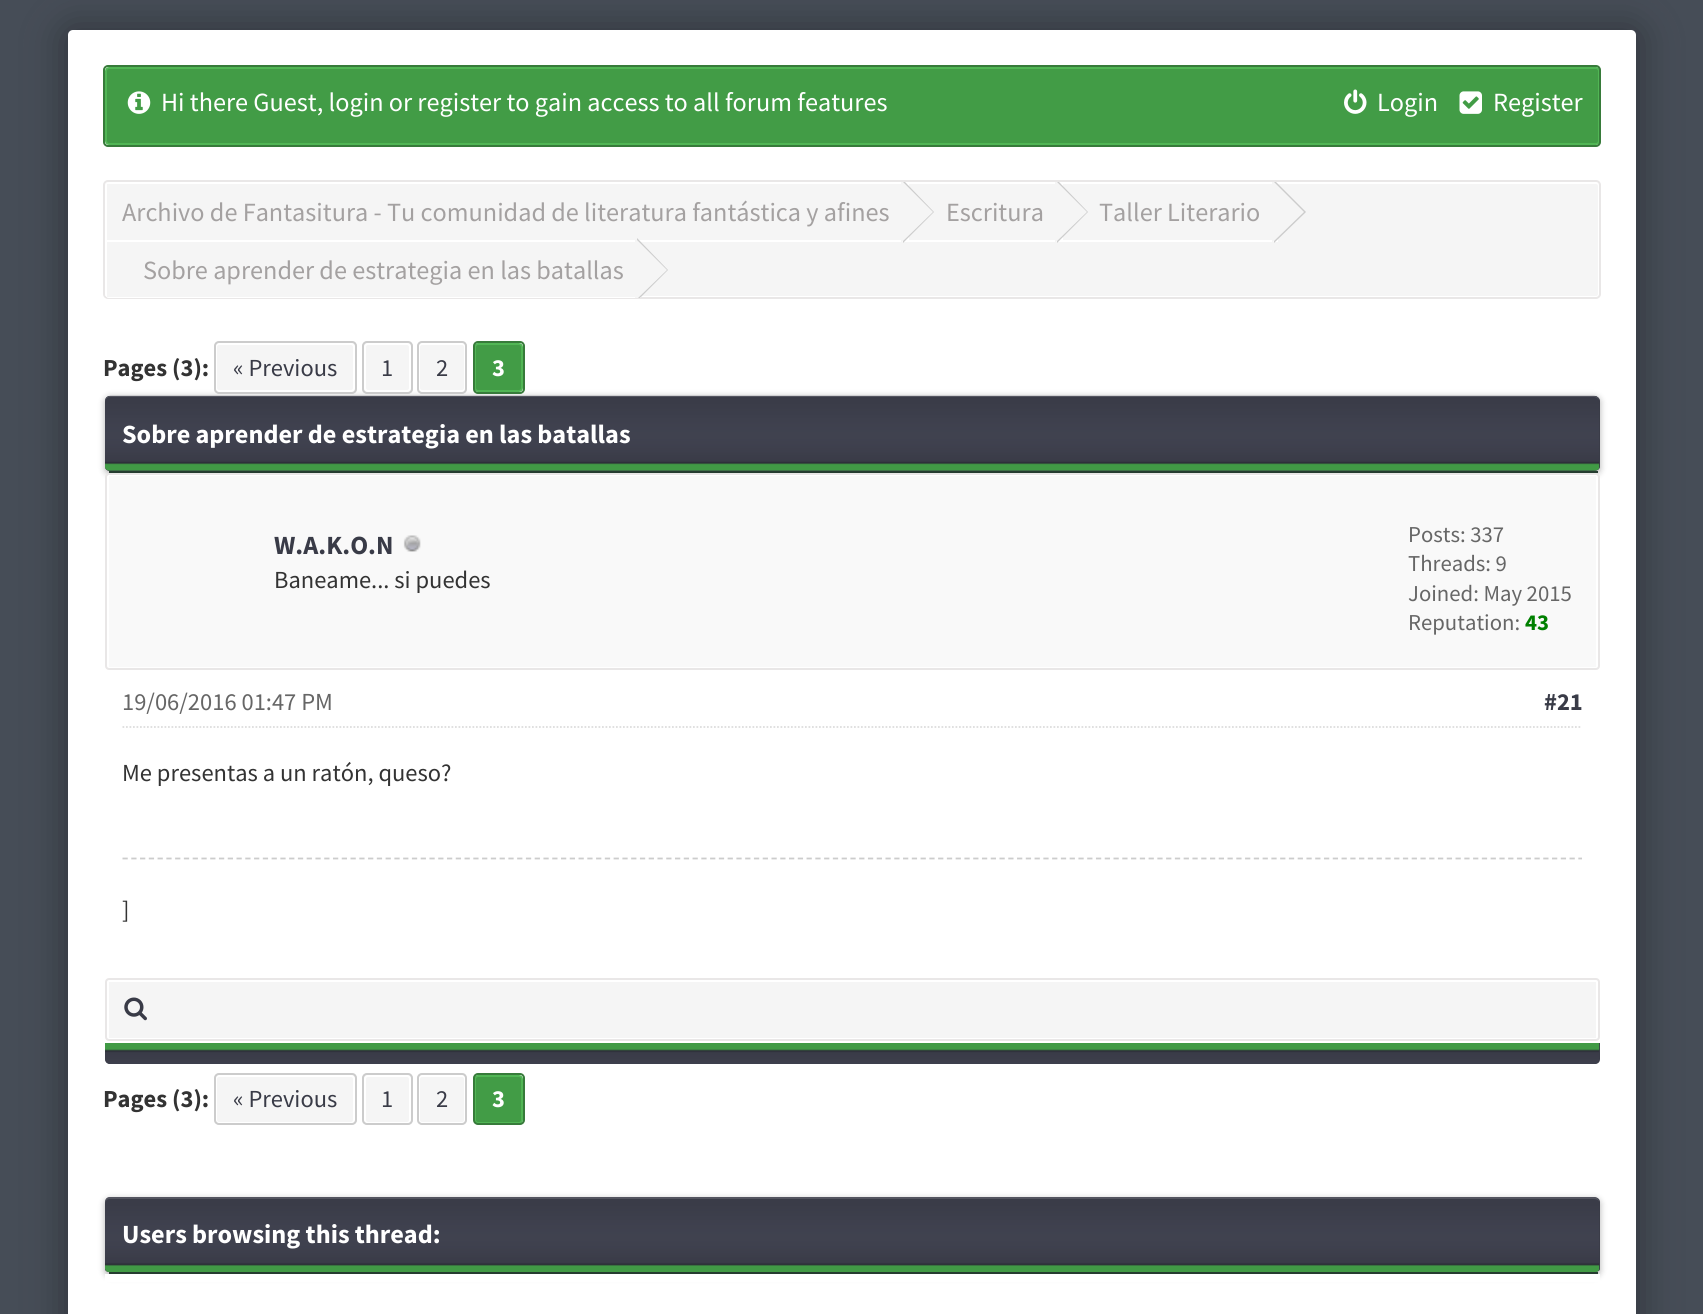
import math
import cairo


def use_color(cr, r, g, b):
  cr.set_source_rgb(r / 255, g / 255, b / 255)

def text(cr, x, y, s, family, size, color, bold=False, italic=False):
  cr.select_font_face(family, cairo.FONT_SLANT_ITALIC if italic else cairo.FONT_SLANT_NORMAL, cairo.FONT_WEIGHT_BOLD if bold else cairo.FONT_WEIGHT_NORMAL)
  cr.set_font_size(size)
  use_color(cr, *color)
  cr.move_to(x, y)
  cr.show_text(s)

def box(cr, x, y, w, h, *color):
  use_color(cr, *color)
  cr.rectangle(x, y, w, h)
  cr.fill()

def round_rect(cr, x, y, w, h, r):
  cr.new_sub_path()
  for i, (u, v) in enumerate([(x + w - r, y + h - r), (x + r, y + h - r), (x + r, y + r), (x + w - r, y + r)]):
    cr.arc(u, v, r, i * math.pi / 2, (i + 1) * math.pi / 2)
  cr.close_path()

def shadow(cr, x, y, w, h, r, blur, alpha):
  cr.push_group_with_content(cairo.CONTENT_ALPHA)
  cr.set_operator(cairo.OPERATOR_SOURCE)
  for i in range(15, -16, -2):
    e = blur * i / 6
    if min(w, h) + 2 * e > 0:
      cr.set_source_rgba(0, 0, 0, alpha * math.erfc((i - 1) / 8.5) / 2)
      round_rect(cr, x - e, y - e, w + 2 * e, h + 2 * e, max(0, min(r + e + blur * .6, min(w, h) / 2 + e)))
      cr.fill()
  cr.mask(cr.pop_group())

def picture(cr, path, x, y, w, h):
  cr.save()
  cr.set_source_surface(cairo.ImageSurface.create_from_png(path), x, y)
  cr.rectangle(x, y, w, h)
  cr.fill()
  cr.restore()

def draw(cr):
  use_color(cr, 70, 77, 87)
  cr.paint()
  use_color(cr, 51, 56, 63)
  shadow(cr, 61, 25, 1582, 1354, 12, 17.5, 1)
  use_color(cr, 255, 255, 255)
  round_rect(cr, 68, 30, 1568, 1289, 5)
  cr.fill()
  use_color(cr, 66, 156, 70)
  round_rect(cr, 106, 68, 1493, 76, 3)
  cr.fill_preserve()
  use_color(cr, 81, 182, 85)
  cr.stroke()
  round_rect(cr, 104, 66, 1496, 80, 4)
  use_color(cr, 55, 123, 58)
  cr.stroke()
  picture(cr, "img_01.png", 127, 91, 24, 23)
  picture(cr, "img_02.png", 1344, 89, 23, 25)
  picture(cr, "img_03.png", 1459, 91, 23, 23)
  use_color(cr, 245, 245, 245)
  round_rect(cr, 106, 183, 1493, 114, 3)
  cr.fill_preserve()
  use_color(cr, 255, 255, 255)
  cr.stroke()
  round_rect(cr, 104, 181, 1496, 117, 4)
  use_color(cr, 233, 231, 231)
  cr.stroke()
  use_color(cr, 245, 245, 245)
  cr.new_path()
  cr.move_to(109, 182)
  cr.line_to(907, 182)
  cr.line_to(907, 242)
  cr.line_to(105, 242)
  cr.line_to(105, 186)
  cr.curve_to(105, 184, 107, 182, 109, 182)
  cr.close_path()
  cr.fill()
  use_color(cr, 255, 255, 255)
  cr.set_fill_rule(cairo.FILL_RULE_EVEN_ODD)
  cr.new_path()
  cr.move_to(109, 182)
  cr.curve_to(107, 182, 105, 184, 105, 186)
  cr.line_to(105, 242)
  cr.line_to(907, 242)
  cr.line_to(907, 182)
  cr.close_path()
  cr.move_to(107, 184)
  cr.line_to(107, 240)
  cr.line_to(905, 240)
  cr.line_to(905, 184)
  cr.close_path()
  cr.fill()
  cr.rectangle(908, 183, 152, 58)
  cr.stroke()
  use_color(cr, 204, 204, 204)
  cr.set_fill_rule(cairo.FILL_RULE_WINDING)
  cr.new_path()
  cr.move_to(903, 243)
  cr.line_to(934, 212)
  cr.line_to(905, 182)
  cr.line_to(903, 182)
  cr.close_path()
  cr.fill()
  use_color(cr, 245, 245, 245)
  cr.new_path()
  cr.move_to(901, 243)
  cr.line_to(933, 212)
  cr.line_to(903, 182)
  cr.line_to(901, 182)
  cr.close_path()
  cr.fill()
  cr.rectangle(1062, 183, 215, 58)
  use_color(cr, 255, 255, 255)
  cr.stroke()
  use_color(cr, 204, 204, 204)
  cr.new_path()
  cr.move_to(1057, 243)
  cr.line_to(1088, 212)
  cr.line_to(1059, 182)
  cr.line_to(1057, 182)
  cr.close_path()
  cr.fill()
  use_color(cr, 245, 245, 245)
  cr.new_path()
  cr.move_to(1055, 243)
  cr.line_to(1087, 212)
  cr.line_to(1057, 182)
  cr.line_to(1055, 182)
  cr.close_path()
  cr.fill()
  use_color(cr, 204, 204, 204)
  cr.new_path()
  cr.move_to(1274, 243)
  cr.line_to(1306, 212)
  cr.line_to(1276, 182)
  cr.line_to(1274, 182)
  cr.close_path()
  cr.fill()
  use_color(cr, 245, 245, 245)
  cr.new_path()
  cr.move_to(1272, 243)
  cr.line_to(1304, 212)
  cr.line_to(1274, 182)
  cr.line_to(1272, 182)
  cr.close_path()
  cr.fill()
  cr.new_path()
  cr.move_to(105, 240)
  cr.line_to(641, 240)
  cr.line_to(641, 298)
  cr.line_to(109, 298)
  cr.curve_to(107, 298, 105, 296, 105, 294)
  cr.close_path()
  cr.fill()
  use_color(cr, 255, 255, 255)
  cr.set_fill_rule(cairo.FILL_RULE_EVEN_ODD)
  cr.new_path()
  cr.move_to(105, 240)
  cr.line_to(105, 294)
  cr.curve_to(105, 296, 107, 298, 109, 298)
  cr.line_to(641, 298)
  cr.line_to(641, 240)
  cr.close_path()
  cr.move_to(107, 242)
  cr.line_to(107, 297)
  cr.line_to(639, 297)
  cr.line_to(639, 242)
  cr.close_path()
  cr.fill()
  use_color(cr, 204, 204, 204)
  cr.set_fill_rule(cairo.FILL_RULE_WINDING)
  cr.new_path()
  cr.move_to(640, 298)
  cr.line_to(637, 298)
  cr.line_to(637, 238)
  cr.line_to(668, 270)
  cr.close_path()
  cr.fill()
  use_color(cr, 245, 245, 245)
  cr.new_path()
  cr.move_to(638, 298)
  cr.line_to(635, 298)
  cr.line_to(635, 238)
  cr.line_to(667, 270)
  cr.close_path()
  cr.fill()
  use_color(cr, 0, 0, 0)
  shadow(cr, 105, 397, 1495, 77, 5, 3.5, 0.3)
  use_color(cr, 245, 245, 245)
  round_rect(cr, 214, 341, 143, 53, 5)
  cr.fill()
  round_rect(cr, 216, 344, 138, 47, 3)
  use_color(cr, 255, 255, 255)
  cr.stroke()
  round_rect(cr, 215, 342, 141, 51, 4)
  use_color(cr, 204, 204, 204)
  cr.stroke()
  use_color(cr, 245, 245, 245)
  round_rect(cr, 362, 341, 51, 53, 5)
  cr.fill()
  round_rect(cr, 365, 344, 45, 47, 3)
  use_color(cr, 255, 255, 255)
  cr.stroke()
  round_rect(cr, 363, 342, 49, 51, 4)
  use_color(cr, 204, 204, 204)
  cr.stroke()
  use_color(cr, 245, 245, 245)
  round_rect(cr, 417, 341, 50, 53, 5)
  cr.fill()
  round_rect(cr, 419, 344, 46, 47, 3)
  use_color(cr, 255, 255, 255)
  cr.stroke()
  round_rect(cr, 418, 342, 48, 51, 4)
  use_color(cr, 204, 204, 204)
  cr.stroke()
  use_color(cr, 66, 156, 70)
  round_rect(cr, 475, 344, 47, 47, 3)
  cr.fill_preserve()
  use_color(cr, 81, 182, 85)
  cr.stroke()
  round_rect(cr, 474, 342, 50, 51, 4)
  use_color(cr, 55, 123, 58)
  cr.stroke()
  use_color(cr, 57, 59, 71)
  cr.new_path()
  cr.move_to(110, 396)
  cr.line_to(1594, 396)
  cr.curve_to(1597, 396, 1600, 398, 1600, 401)
  cr.line_to(1600, 467)
  cr.curve_to(1600, 469, 1597, 471, 1594, 471)
  cr.line_to(110, 471)
  cr.curve_to(107, 471, 105, 469, 105, 467)
  cr.line_to(105, 401)
  cr.curve_to(105, 398, 107, 396, 110, 396)
  cr.close_path()
  cr.fill()
  picture(cr, "img_04.png", 105, 395, 1495, 76)
  cr.set_source_rgba(1, 1, 1, 0.13)
  cr.new_path()
  cr.move_to(110, 397)
  cr.line_to(1594, 397)
  cr.curve_to(1596, 397, 1599, 399, 1599, 400)
  cr.curve_to(1599, 398, 1597, 396, 1594, 396)
  cr.line_to(110, 396)
  cr.curve_to(107, 396, 105, 398, 105, 401)
  cr.line_to(105, 402)
  cr.curve_to(105, 400, 107, 397, 110, 397)
  cr.close_path()
  cr.fill()
  box(cr, 109, 471, 1489, 2, 38, 60, 48)
  use_color(cr, 249, 249, 249)
  round_rect(cr, 108, 475, 1489, 193, 1)
  cr.fill_preserve()
  use_color(cr, 255, 255, 255)
  cr.stroke()
  round_rect(cr, 106, 474, 1493, 195, 3)
  use_color(cr, 233, 231, 231)
  cr.stroke()
  picture(cr, "img_05.png", 403, 535, 18, 17)
  cr.new_path()
  cr.move_to(122.5, 727)
  cr.line_to(1582, 727)
  use_color(cr, 221, 221, 221)
  cr.set_line_width(1.8)
  cr.set_dash([1.75, 1.75])
  cr.stroke()
  cr.new_path()
  cr.move_to(122.5, 858.5)
  cr.line_to(1582, 858.5)
  use_color(cr, 204, 204, 204)
  cr.set_dash([5.25, 3.52])
  cr.stroke()
  use_color(cr, 245, 245, 245)
  round_rect(cr, 108, 981, 1489, 58, 1)
  cr.fill_preserve()
  use_color(cr, 255, 255, 255)
  cr.set_line_width(2)
  cr.set_dash([])
  cr.stroke()
  round_rect(cr, 106, 979, 1493, 61, 3)
  use_color(cr, 233, 231, 231)
  cr.stroke()
  picture(cr, "img_06.png", 124, 997, 23, 24)
  use_color(cr, 57, 59, 71)
  cr.new_path()
  cr.move_to(105, 1043)
  cr.line_to(1600, 1043)
  cr.line_to(1600, 1059)
  cr.curve_to(1600, 1062, 1598, 1064, 1595, 1064)
  cr.line_to(110, 1064)
  cr.curve_to(107, 1064, 105, 1062, 105, 1059)
  cr.close_path()
  cr.fill()
  picture(cr, "img_07.png", 105, 1043, 1495, 21)
  use_color(cr, 245, 245, 245)
  round_rect(cr, 214, 1073, 143, 52, 5)
  cr.fill()
  round_rect(cr, 216, 1076, 138, 47, 3)
  use_color(cr, 255, 255, 255)
  cr.stroke()
  round_rect(cr, 215, 1074, 141, 50, 4)
  use_color(cr, 204, 204, 204)
  cr.stroke()
  use_color(cr, 245, 245, 245)
  round_rect(cr, 362, 1073, 51, 52, 5)
  cr.fill()
  round_rect(cr, 365, 1076, 45, 47, 3)
  use_color(cr, 255, 255, 255)
  cr.stroke()
  round_rect(cr, 363, 1074, 49, 50, 4)
  use_color(cr, 204, 204, 204)
  cr.stroke()
  use_color(cr, 245, 245, 245)
  round_rect(cr, 417, 1073, 50, 52, 5)
  cr.fill()
  round_rect(cr, 419, 1076, 46, 47, 3)
  use_color(cr, 255, 255, 255)
  cr.stroke()
  round_rect(cr, 418, 1074, 48, 50, 4)
  use_color(cr, 204, 204, 204)
  cr.stroke()
  use_color(cr, 66, 156, 70)
  round_rect(cr, 475, 1076, 47, 47, 3)
  cr.fill_preserve()
  use_color(cr, 81, 182, 85)
  cr.stroke()
  round_rect(cr, 474, 1074, 50, 50, 4)
  use_color(cr, 55, 123, 58)
  cr.stroke()
  use_color(cr, 0, 0, 0)
  shadow(cr, 105, 1199, 1495, 77, 5, 3.5, 0.3)
  use_color(cr, 57, 59, 71)
  cr.new_path()
  cr.move_to(110, 1197)
  cr.line_to(1594, 1197)
  cr.curve_to(1597, 1197, 1600, 1199, 1600, 1202)
  cr.line_to(1600, 1269)
  cr.curve_to(1600, 1271, 1597, 1272, 1594, 1272)
  cr.line_to(110, 1272)
  cr.curve_to(107, 1272, 105, 1271, 105, 1269)
  cr.line_to(105, 1202)
  cr.curve_to(105, 1199, 107, 1197, 110, 1197)
  cr.close_path()
  cr.fill()
  picture(cr, "img_08.png", 105, 1197, 1495, 75)
  cr.set_source_rgba(1, 1, 1, 0.13)
  cr.new_path()
  cr.move_to(110, 1199)
  cr.line_to(1594, 1199)
  cr.curve_to(1596, 1199, 1599, 1200, 1599, 1202)
  cr.curve_to(1599, 1199, 1597, 1197, 1594, 1197)
  cr.line_to(110, 1197)
  cr.curve_to(107, 1197, 105, 1199, 105, 1202)
  cr.line_to(105, 1204)
  cr.curve_to(105, 1201, 107, 1199, 110, 1199)
  cr.close_path()
  cr.fill()
  box(cr, 109, 1272, 1489, 2, 38, 60, 48)
  box(cr, 105, 1274, 1495, 8, 255, 255, 255)
  text(cr, 161, 111, "Hi there Guest, login or register to gain access to all forum features", "Source Sans Pro", 26.25, (255, 255, 255))
  text(cr, 1377, 111, "Login", "Source Sans Pro", 26.25, (255, 255, 255))
  text(cr, 1493, 111, "Register", "Source Sans Pro", 26.25, (255, 255, 255))
  text(cr, 122, 221, "Archivo de Fantasitura - Tu comunidad de literatura fantástica y afines", "Source Sans Pro", 26.25, (164, 161, 161))
  text(cr, 946, 221, "Escritura", "Source Sans Pro", 26.25, (164, 161, 161))
  text(cr, 1099, 221, "Taller Literario", "Source Sans Pro", 26.25, (164, 161, 161))
  text(cr, 143, 279, "Sobre aprender de estrategia en las batallas", "Source Sans Pro", 26.25, (164, 161, 161))
  text(cr, 103, 376, "Pages (3):", "Source Sans Pro", 24.5, (51, 51, 51), bold=True)
  text(cr, 233, 376, "« Previous", "Source Sans Pro", 24.5, (57, 59, 71))
  text(cr, 381, 376, "1", "Source Sans Pro", 24.5, (57, 59, 71))
  text(cr, 436, 376, "2", "Source Sans Pro", 24.5, (57, 59, 71))
  text(cr, 492, 376, "3", "Source Sans Pro", 24.5, (255, 255, 255), bold=True)
  text(cr, 122, 443, "Sobre aprender de estrategia en las batallas", "Source Sans Pro", 26.25, (255, 255, 255), bold=True)
  text(cr, 274, 554, "W.A.K.O.N", "Source Sans Pro", 26.25, (57, 59, 71), bold=True)
  text(cr, 274, 588, "Baneame... si puedes", "Source Sans Pro", 24.5, (51, 51, 51))
  text(cr, 1408, 542, "Posts: 337", "Source Sans Pro", 22.75, (102, 102, 102))
  text(cr, 1408, 571, "Threads: 9", "Source Sans Pro", 22.75, (102, 102, 102))
  text(cr, 1408, 601, "Joined: May 2015", "Source Sans Pro", 22.75, (102, 102, 102))
  text(cr, 1408, 630, "Reputation:", "Source Sans Pro", 22.75, (102, 102, 102))
  text(cr, 1525, 630, "43", "Source Sans Pro", 22.75, (0, 128, 0), bold=True)
  text(cr, 122, 710, "19/06/2016 01:47 PM", "Source Sans Pro", 24.5, (102, 102, 102))
  text(cr, 1544, 710, "#21", "Source Sans Pro", 24.5, (57, 59, 71), bold=True)
  text(cr, 122, 781, "Me presentas a un ratón, queso?", "Source Sans Pro", 24.5, (51, 51, 51))
  text(cr, 122, 918, "]", "Source Sans Pro", 24.5, (51, 51, 51))
  text(cr, 103, 1107, "Pages (3):", "Source Sans Pro", 24.5, (51, 51, 51), bold=True)
  text(cr, 233, 1107, "« Previous", "Source Sans Pro", 24.5, (57, 59, 71))
  text(cr, 381, 1107, "1", "Source Sans Pro", 24.5, (57, 59, 71))
  text(cr, 436, 1107, "2", "Source Sans Pro", 24.5, (57, 59, 71))
  text(cr, 492, 1107, "3", "Source Sans Pro", 24.5, (255, 255, 255), bold=True)
  text(cr, 122, 1243, "Users browsing this thread:", "Source Sans Pro", 26.25, (255, 255, 255), bold=True)


surface = cairo.ImageSurface(cairo.FORMAT_RGB24, 1703, 1314)
cr = cairo.Context(surface)
options = cairo.FontOptions()
options.set_hint_metrics(cairo.HINT_METRICS_OFF)
options.set_hint_style(cairo.HINT_STYLE_NONE)
cr.set_font_options(options)
cr.set_miter_limit(4)
draw(cr)
surface.write_to_png("out.png")
